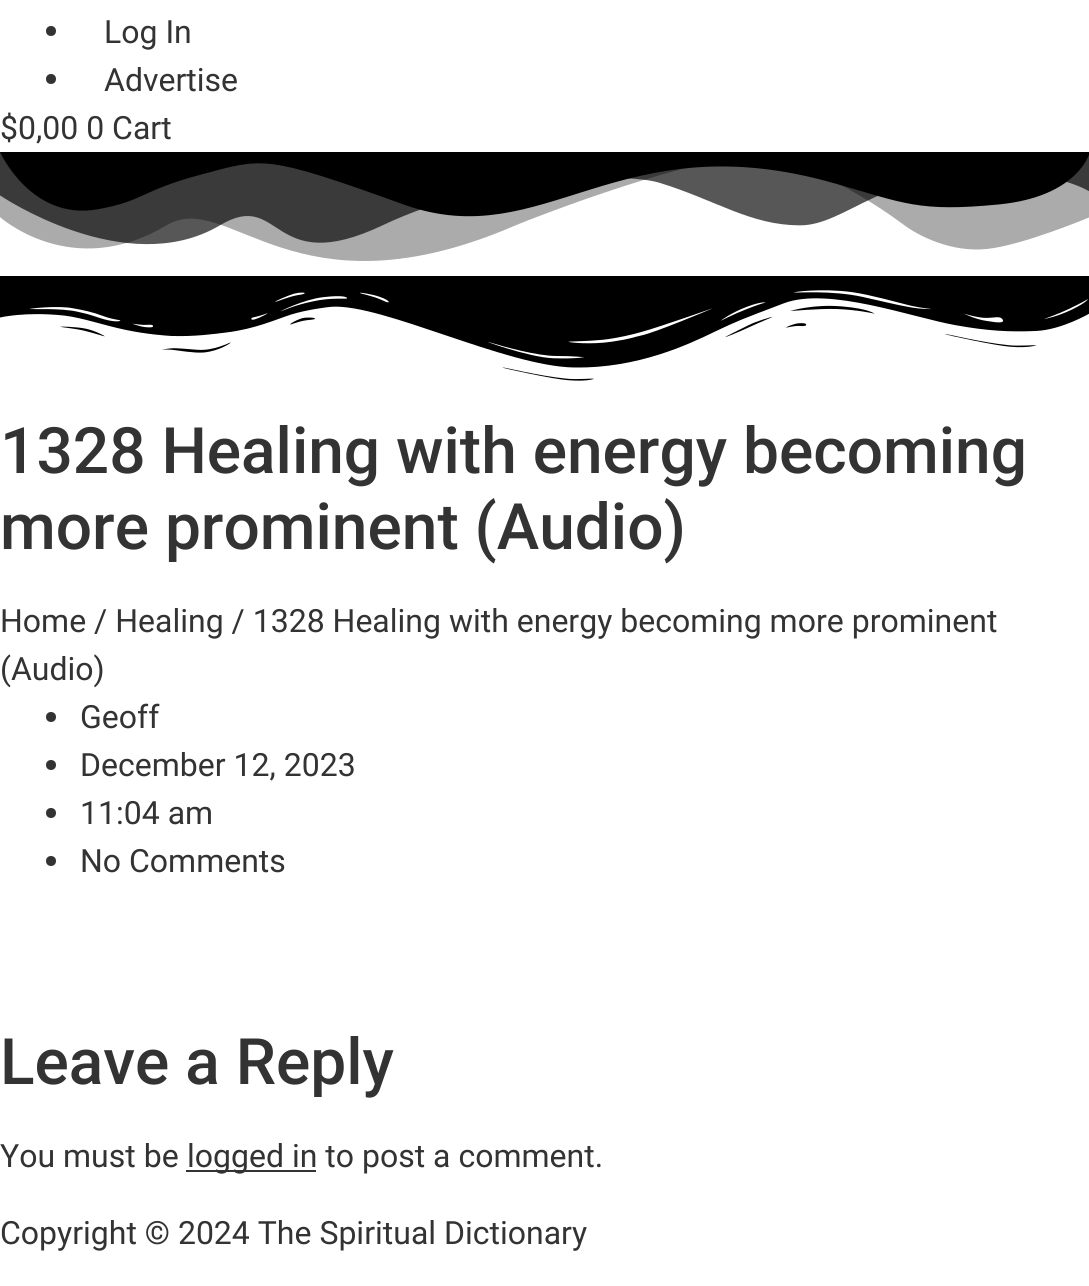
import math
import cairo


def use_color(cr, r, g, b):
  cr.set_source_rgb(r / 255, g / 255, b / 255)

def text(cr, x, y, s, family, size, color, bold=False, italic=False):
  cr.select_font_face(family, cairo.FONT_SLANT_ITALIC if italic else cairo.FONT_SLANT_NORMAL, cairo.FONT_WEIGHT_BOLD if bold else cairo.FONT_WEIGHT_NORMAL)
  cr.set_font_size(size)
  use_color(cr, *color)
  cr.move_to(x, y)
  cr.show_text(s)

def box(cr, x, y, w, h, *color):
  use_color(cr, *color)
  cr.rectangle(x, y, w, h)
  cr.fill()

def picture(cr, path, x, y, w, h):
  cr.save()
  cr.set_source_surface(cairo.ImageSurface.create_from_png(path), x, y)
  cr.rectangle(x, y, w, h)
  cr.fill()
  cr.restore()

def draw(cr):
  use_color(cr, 255, 255, 255)
  cr.paint()
  use_color(cr, 51, 51, 51)
  cr.arc(51, 31, 5, 0, 2 * math.pi)
  cr.fill()
  cr.arc(51, 79, 5, 0, 2 * math.pi)
  cr.fill()
  picture(cr, "img_01.png", 0, 152, 1089, 109)
  picture(cr, "img_02.png", 0, 276, 1089, 105)
  cr.arc(51, 717, 5, 0, 2 * math.pi)
  cr.fill()
  cr.arc(51, 765, 5, 0, 2 * math.pi)
  cr.fill()
  cr.arc(51, 813, 5, 0, 2 * math.pi)
  cr.fill()
  cr.arc(51, 861, 5, 0, 2 * math.pi)
  cr.fill()
  box(cr, 186, 1170, 130, 2, 51, 51, 51)
  text(cr, 104, 43, "Log In", "Roboto", 32, (51, 51, 51))
  text(cr, 104, 91, "Advertise", "Roboto", 32, (51, 51, 51))
  text(cr, 0, 139, "$0,00 0 Cart", "Roboto", 32, (51, 51, 51))
  text(cr, 0, 473, "1328 Healing with energy becoming", "Roboto Medium", 64, (51, 51, 51))
  text(cr, 0, 549, "more prominent (Audio)", "Roboto Medium", 64, (51, 51, 51))
  text(cr, 0, 632, "Home / Healing / 1328 Healing with energy becoming more prominent", "Roboto", 32, (51, 51, 51))
  text(cr, 0, 680, "(Audio)", "Roboto", 32, (51, 51, 51))
  text(cr, 80, 728, "Geoff", "Roboto", 32, (51, 51, 51))
  text(cr, 80, 776, "December 12, 2023", "Roboto", 32, (51, 51, 51))
  text(cr, 80, 824, "11:04 am", "Roboto", 32, (51, 51, 51))
  text(cr, 80, 872, "No Comments", "Roboto", 32, (51, 51, 51))
  text(cr, 0, 1084, "Leave a Reply", "Roboto Medium", 64, (51, 51, 51))
  text(cr, 0, 1167, "You must be", "Roboto", 32, (51, 51, 51))
  text(cr, 187, 1167, "logged in to post a comment.", "Roboto", 32, (51, 51, 51))
  text(cr, 0, 1244, "Copyright © 2024 The Spiritual Dictionary", "Roboto", 32, (51, 51, 51))


surface = cairo.ImageSurface(cairo.FORMAT_RGB24, 1089, 1286)
cr = cairo.Context(surface)
options = cairo.FontOptions()
options.set_hint_metrics(cairo.HINT_METRICS_OFF)
options.set_hint_style(cairo.HINT_STYLE_NONE)
cr.set_font_options(options)
cr.set_miter_limit(4)
draw(cr)
surface.write_to_png("out.png")
